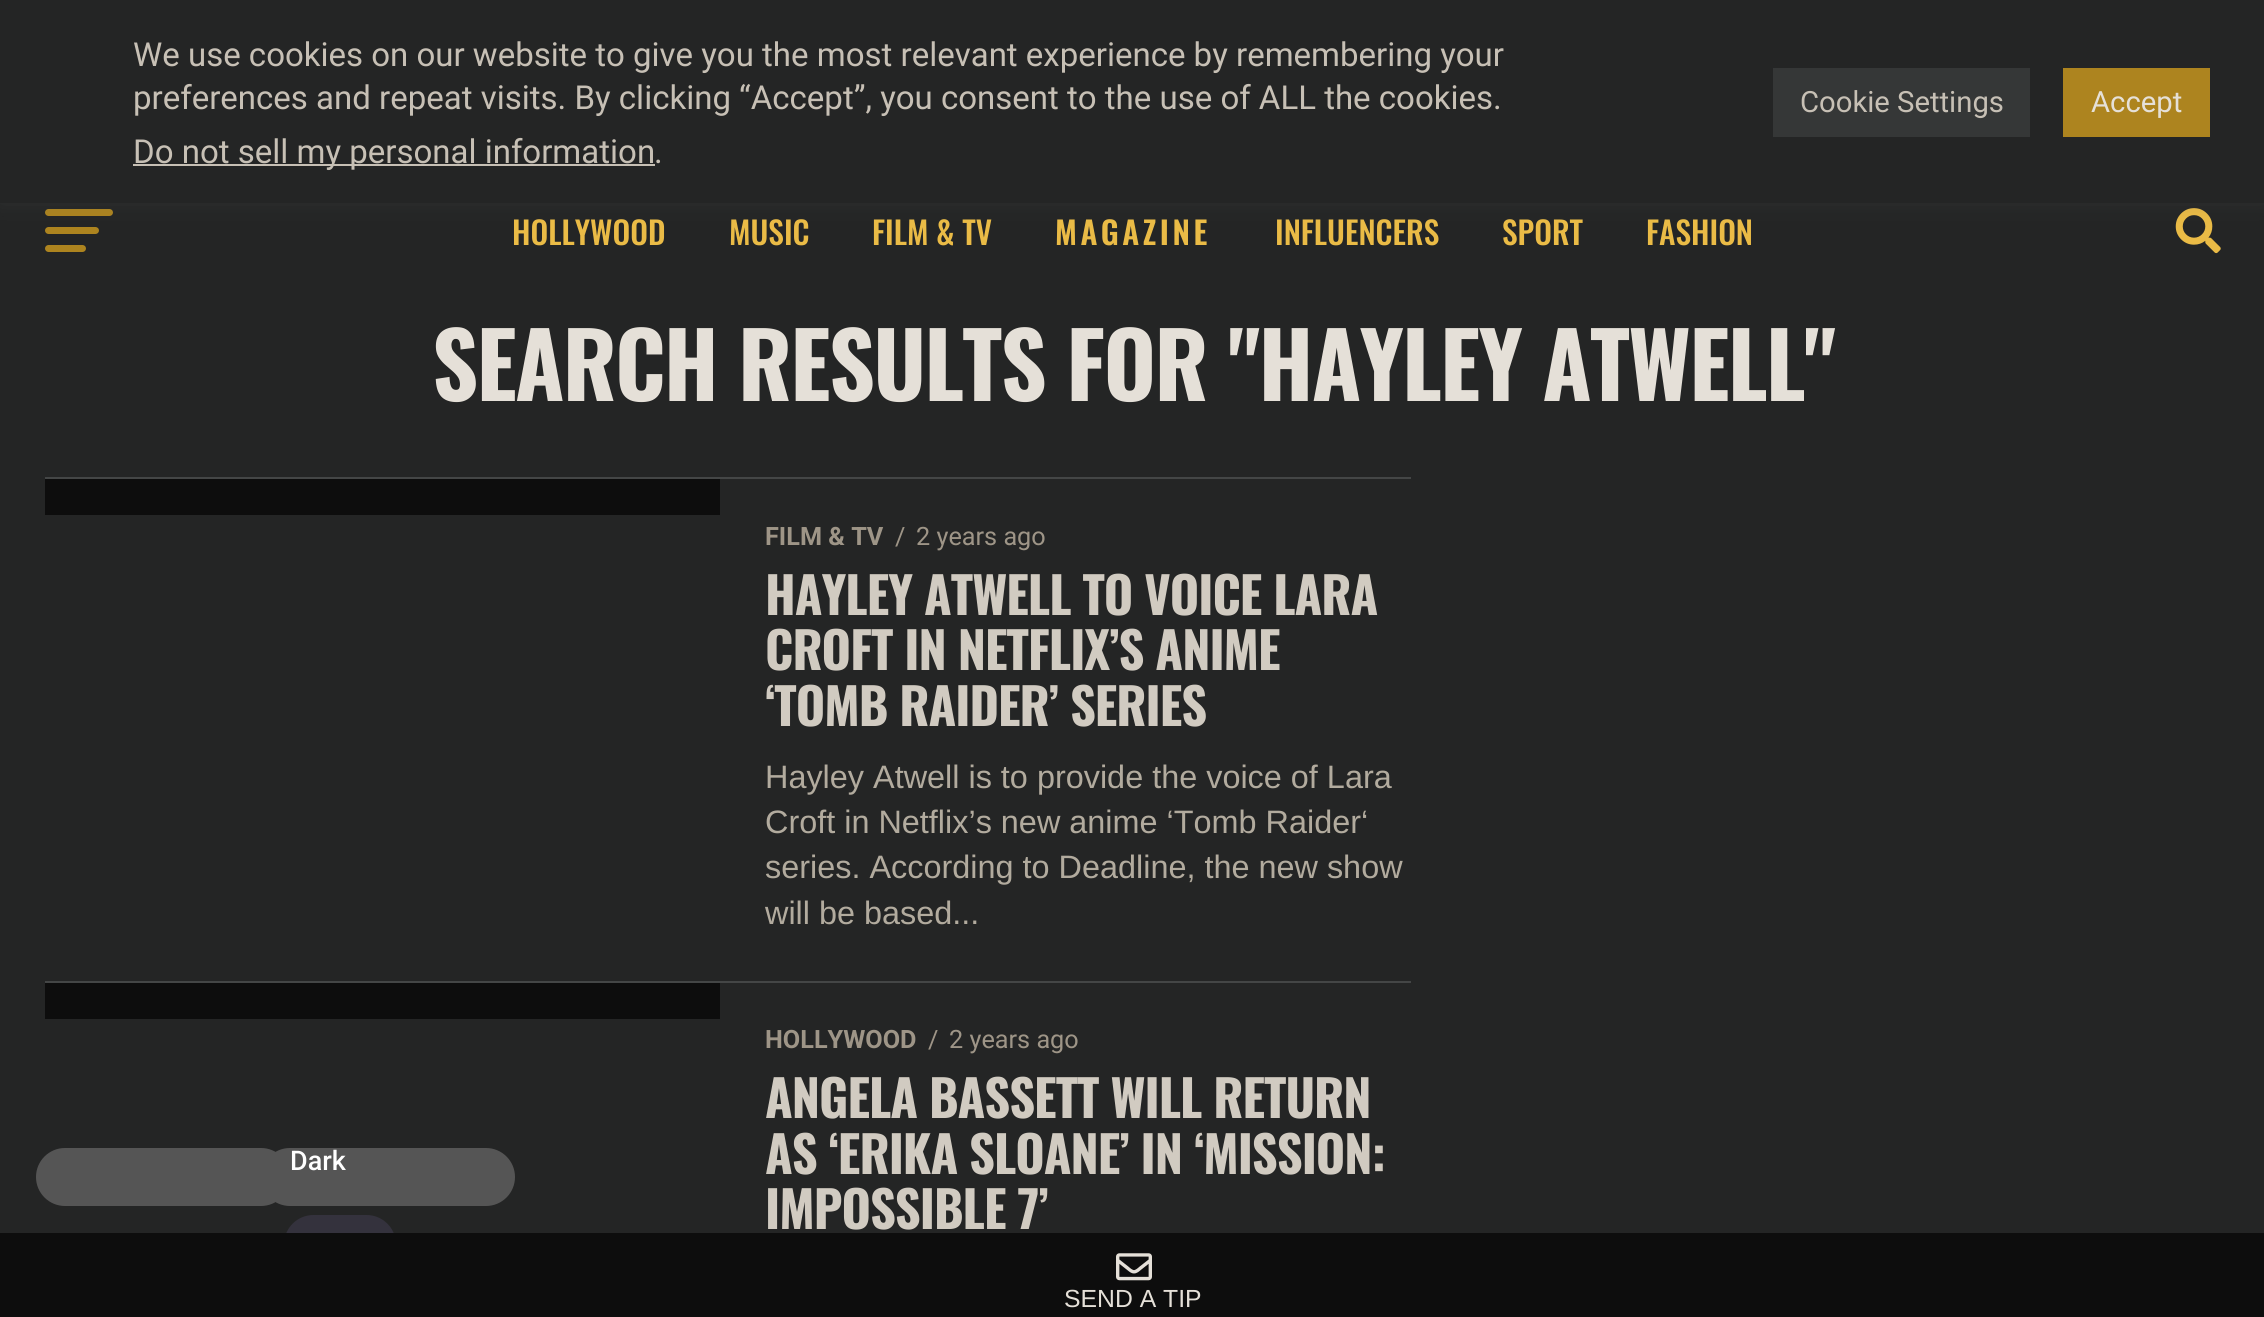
import math
import cairo


def use_color(cr, r, g, b):
  cr.set_source_rgb(r / 255, g / 255, b / 255)

def text(cr, x, y, s, family, size, color, bold=False, italic=False):
  cr.select_font_face(family, cairo.FONT_SLANT_ITALIC if italic else cairo.FONT_SLANT_NORMAL, cairo.FONT_WEIGHT_BOLD if bold else cairo.FONT_WEIGHT_NORMAL)
  cr.set_font_size(size)
  use_color(cr, *color)
  cr.move_to(x, y)
  cr.show_text(s)

def spaced_text(cr, x, y, s, letter, word):
  cr.move_to(x, y)
  for ch in s:
    cr.show_text(ch)
    cr.rel_move_to(letter + word * (ch == ' '), 0)

def box(cr, x, y, w, h, *color):
  use_color(cr, *color)
  cr.rectangle(x, y, w, h)
  cr.fill()

def round_rect(cr, x, y, w, h, r):
  cr.new_sub_path()
  for i, (u, v) in enumerate([(x + w - r, y + h - r), (x + r, y + h - r), (x + r, y + r), (x + w - r, y + r)]):
    cr.arc(u, v, r, i * math.pi / 2, (i + 1) * math.pi / 2)
  cr.close_path()

def shadow(cr, x, y, w, h, r, blur, alpha):
  cr.push_group_with_content(cairo.CONTENT_ALPHA)
  cr.set_operator(cairo.OPERATOR_SOURCE)
  for i in range(15, -16, -2):
    e = blur * i / 6
    if min(w, h) + 2 * e > 0:
      cr.set_source_rgba(0, 0, 0, alpha * math.erfc((i - 1) / 8.5) / 2)
      round_rect(cr, x - e, y - e, w + 2 * e, h + 2 * e, max(0, min(r + e + blur * .6, min(w, h) / 2 + e)))
      cr.fill()
  cr.mask(cr.pop_group())

def picture(cr, path, x, y, w, h):
  cr.save()
  cr.set_source_surface(cairo.ImageSurface.create_from_png(path), x, y)
  cr.rectangle(x, y, w, h)
  cr.fill()
  cr.restore()

def draw(cr):
  use_color(cr, 36, 37, 37)
  cr.paint()
  use_color(cr, 173, 132, 31)
  round_rect(cr, 45, 209, 68, 7, 3.5)
  cr.fill()
  round_rect(cr, 45, 227, 54, 7, 3.5)
  cr.fill()
  picture(cr, "img_01.png", 2175, 208, 46, 46)
  use_color(cr, 80, 84, 84)
  shadow(cr, 0, -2, 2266, 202, 0, 11, 0.3)
  box(cr, 0, 0, 2264, 203, 36, 37, 37)
  box(cr, 133, 164, 522, 2, 199, 192, 181)
  box(cr, 1773, 68, 257, 69, 53, 55, 55)
  box(cr, 2063, 68, 147, 69, 173, 132, 31)
  use_color(cr, 85, 85, 85)
  round_rect(cr, 36, 1148, 225, 58, 29)
  cr.fill()
  use_color(cr, 52, 50, 61)
  round_rect(cr, 284, 1215, 112, 59, 29.5)
  cr.fill()
  use_color(cr, 85, 85, 85)
  round_rect(cr, 261, 1148, 225, 58, 29)
  cr.fill()
  round_rect(cr, 65, 1148, 225, 58, 29)
  cr.fill()
  round_rect(cr, 290, 1148, 225, 58, 29)
  cr.fill()
  use_color(cr, 173, 132, 31)
  round_rect(cr, 45, 245, 41, 7, 3.5)
  cr.fill()
  box(cr, 45, 477, 1366, 2, 68, 70, 70)
  box(cr, 45, 479, 675, 36, 13, 13, 13)
  box(cr, 45, 981, 1366, 2, 68, 70, 70)
  box(cr, 45, 983, 675, 36, 13, 13, 13)
  box(cr, 0, 1233, 2264, 84, 13, 13, 13)
  picture(cr, "img_02.png", 1116, 1253, 36, 28)
  text(cr, 133, 66, "We use cookies on our website to give you the most relevant experience by remembering your", "Roboto", 33, (199, 192, 181))
  text(cr, 133, 109, "preferences and repeat visits. By clicking “Accept”, you consent to the use of ALL the cookies.", "Roboto", 33, (199, 192, 181))
  text(cr, 133, 163, "Do not sell my personal information", "Roboto", 33, (199, 192, 181))
  text(cr, 654, 163, ".", "Roboto", 33, (199, 192, 181))
  text(cr, 1800, 112, "Cookie Settings", "Roboto", 29.25, (199, 192, 181))
  text(cr, 2091, 112, "Accept", "Roboto", 29.25, (229, 224, 216))
  text(cr, 290, 1170, "Dark", "Roboto Medium", 27, (255, 255, 255))
  text(cr, 512, 245, "HOLLYWOOD", "Oswald Medium", 31.5, (234, 187, 70))
  text(cr, 729, 245, "MUSIC", "Oswald Medium", 31.5, (234, 187, 70))
  text(cr, 872, 245, "FILM & TV", "Oswald Medium", 31.5, (234, 187, 70))
  cr.select_font_face("Oswald SemiBold")
  spaced_text(cr, 1055, 245, "MAGAZINE", 3.5, 0)
  text(cr, 1275, 245, "INFLUENCERS", "Oswald Medium", 31.5, (234, 187, 70))
  text(cr, 1502, 245, "SPORT", "Oswald Medium", 31.5, (234, 187, 70))
  text(cr, 1646, 245, "FASHION", "Oswald Medium", 31.5, (234, 187, 70))
  cr.select_font_face("Oswald", cairo.FONT_SLANT_NORMAL, cairo.FONT_WEIGHT_BOLD)
  cr.set_font_size(90)
  use_color(cr, 229, 224, 216)
  spaced_text(cr, 432, 401, "SEARCH RESULTS FOR \"HAYLEY ATWELL\"", -1.8, 0)
  text(cr, 765, 545, "FILM & TV", "Roboto", 25.25, (158, 149, 135), bold=True)
  text(cr, 895, 545, "/", "Roboto", 25.25, (158, 149, 135))
  text(cr, 916, 545, "2 years ago", "Roboto", 25.25, (158, 149, 135))
  cr.select_font_face("Oswald", cairo.FONT_SLANT_NORMAL, cairo.FONT_WEIGHT_BOLD)
  cr.set_font_size(50.4)
  use_color(cr, 209, 203, 193)
  spaced_text(cr, 765, 615, "HAYLEY ATWELL TO VOICE LARA", -1, 0)
  spaced_text(cr, 765, 670, "CROFT IN NETFLIX’S ANIME", -1, 0)
  spaced_text(cr, 765, 726, "‘TOMB RAIDER’ SERIES", -1, 0)
  text(cr, 765, 788, "Hayley Atwell is to provide the voice of Lara", "Liberation Sans", 32.4, (178, 171, 158))
  text(cr, 765, 833, "Croft in Netflix’s new anime ‘Tomb Raider‘", "Liberation Sans", 32.4, (178, 171, 158))
  text(cr, 765, 878, "series. According to Deadline, the new show", "Liberation Sans", 32.4, (178, 171, 158))
  text(cr, 765, 924, "will be based...", "Liberation Sans", 32.4, (178, 171, 158))
  text(cr, 765, 1048, "HOLLYWOOD", "Roboto", 25.25, (158, 149, 135), bold=True)
  text(cr, 928, 1048, "/", "Roboto", 25.25, (158, 149, 135))
  text(cr, 949, 1048, "2 years ago", "Roboto", 25.25, (158, 149, 135))
  cr.select_font_face("Oswald", cairo.FONT_SLANT_NORMAL, cairo.FONT_WEIGHT_BOLD)
  cr.set_font_size(50.4)
  use_color(cr, 209, 203, 193)
  spaced_text(cr, 765, 1118, "ANGELA BASSETT WILL RETURN", -1, 0)
  spaced_text(cr, 765, 1174, "AS ‘ERIKA SLOANE’ IN ‘MISSION:", -1, 0)
  spaced_text(cr, 765, 1229, "IMPOSSIBLE 7’", -1, 0)
  text(cr, 1064, 1307, "SEND A TIP", "Liberation Sans", 24.75, (229, 224, 216))


surface = cairo.ImageSurface(cairo.FORMAT_RGB24, 2264, 1317)
cr = cairo.Context(surface)
options = cairo.FontOptions()
options.set_hint_metrics(cairo.HINT_METRICS_OFF)
options.set_hint_style(cairo.HINT_STYLE_NONE)
cr.set_font_options(options)
cr.set_miter_limit(4)
draw(cr)
surface.write_to_png("out.png")
